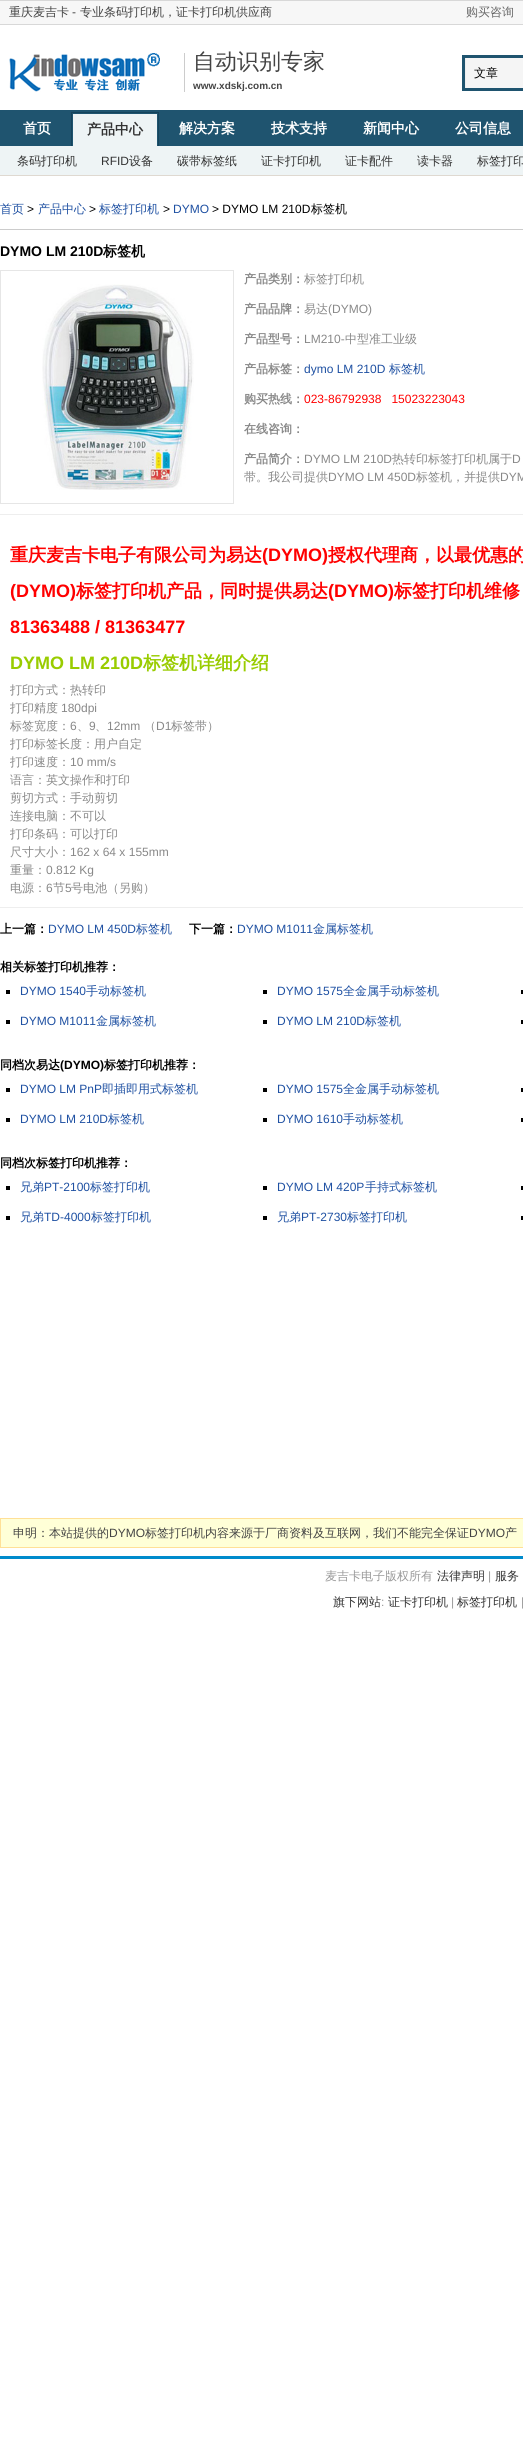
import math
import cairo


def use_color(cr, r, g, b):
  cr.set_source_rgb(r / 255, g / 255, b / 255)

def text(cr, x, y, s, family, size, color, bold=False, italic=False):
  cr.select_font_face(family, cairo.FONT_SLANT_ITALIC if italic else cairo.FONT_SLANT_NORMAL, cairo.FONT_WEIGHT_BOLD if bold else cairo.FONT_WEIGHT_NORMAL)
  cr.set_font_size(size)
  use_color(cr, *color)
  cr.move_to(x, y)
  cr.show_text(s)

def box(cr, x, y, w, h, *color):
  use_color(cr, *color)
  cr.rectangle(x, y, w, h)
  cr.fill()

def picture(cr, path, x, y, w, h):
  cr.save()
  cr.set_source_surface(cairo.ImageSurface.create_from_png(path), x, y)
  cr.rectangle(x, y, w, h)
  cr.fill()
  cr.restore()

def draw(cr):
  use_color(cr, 255, 255, 255)
  cr.paint()
  box(cr, 0, 1, 523, 23, 247, 247, 247)
  box(cr, 0, 0, 523, 1, 216, 216, 216)
  box(cr, 0, 24, 523, 1, 216, 216, 216)
  box(cr, 184, 53, 1, 39, 204, 204, 204)
  picture(cr, "img_01.png", 9, 53, 151, 39)
  box(cr, 462, 55, 61, 3, 31, 84, 111)
  box(cr, 462, 88, 61, 3, 31, 84, 111)
  box(cr, 462, 55, 3, 36, 31, 84, 111)
  box(cr, 466, 58, 57, 30, 245, 245, 245)
  box(cr, 465, 58, 1, 30, 238, 238, 238)
  box(cr, 0, 110, 523, 36, 31, 84, 111)
  box(cr, 71, 112, 88, 1, 22, 68, 92)
  box(cr, 158, 112, 1, 34, 22, 68, 92)
  box(cr, 71, 112, 1, 34, 22, 68, 92)
  box(cr, 73, 114, 84, 32, 238, 244, 245)
  box(cr, 0, 146, 523, 29, 238, 244, 245)
  box(cr, 0, 175, 523, 1, 223, 217, 209)
  box(cr, 0, 229, 523, 1, 204, 204, 204)
  box(cr, 0, 514, 523, 1, 238, 238, 238)
  cr.rectangle(0.5, 270.5, 233, 233)
  use_color(cr, 230, 230, 230)
  cr.set_line_width(1)
  cr.stroke()
  picture(cr, "img_02.png", 42, 284, 152, 206)
  box(cr, 0, 907, 523, 1, 238, 238, 238)
  box(cr, 6, 990, 4, 4, 0, 0, 0)
  box(cr, 263, 990, 4, 4, 0, 0, 0)
  box(cr, 521, 990, 2, 4, 0, 0, 0)
  box(cr, 6, 1020, 4, 4, 0, 0, 0)
  box(cr, 263, 1020, 4, 4, 0, 0, 0)
  box(cr, 521, 1020, 2, 4, 0, 0, 0)
  box(cr, 6, 1088, 4, 4, 0, 0, 0)
  box(cr, 263, 1088, 4, 4, 0, 0, 0)
  box(cr, 521, 1088, 2, 4, 0, 0, 0)
  box(cr, 6, 1118, 4, 4, 0, 0, 0)
  box(cr, 263, 1118, 4, 4, 0, 0, 0)
  box(cr, 521, 1118, 2, 4, 0, 0, 0)
  box(cr, 6, 1186, 4, 4, 0, 0, 0)
  box(cr, 263, 1186, 4, 4, 0, 0, 0)
  box(cr, 521, 1186, 2, 4, 0, 0, 0)
  box(cr, 6, 1216, 4, 4, 0, 0, 0)
  box(cr, 263, 1216, 4, 4, 0, 0, 0)
  box(cr, 521, 1216, 2, 4, 0, 0, 0)
  use_color(cr, 255, 255, 215)
  cr.rectangle(0.5, 1518.5, 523, 29)
  cr.fill_preserve()
  use_color(cr, 255, 224, 151)
  cr.stroke()
  box(cr, 0, 1556, 523, 3, 0, 139, 204)
  text(cr, 9, 16, "重庆麦吉卡", "WenQuanYi Zen Hei Medium", 12, (68, 68, 68))
  text(cr, 72, 16, "-", "Liberation Sans", 12, (68, 68, 68))
  text(cr, 80, 16, "专业条码打印机，证卡打印机供应商", "WenQuanYi Zen Hei Medium", 12, (68, 68, 68))
  text(cr, 466, 16, "购买咨询", "WenQuanYi Zen Hei Medium", 12, (102, 102, 102))
  text(cr, 193, 69, "自动识别专家", "WenQuanYi Zen Hei Medium", 22, (68, 68, 68))
  text(cr, 193, 89, "www.xdskj.com.cn", "Liberation Sans", 10, (68, 68, 68), bold=True)
  text(cr, 474, 77, "文章", "WenQuanYi Zen Hei Medium", 12, (0, 0, 0))
  text(cr, 23, 133, "首页", "WenQuanYi Zen Hei", 14, (255, 255, 255), bold=True)
  text(cr, 87, 134, "产品中心", "WenQuanYi Zen Hei", 14, (51, 51, 51), bold=True)
  text(cr, 179, 133, "解决方案", "WenQuanYi Zen Hei", 14, (255, 255, 255), bold=True)
  text(cr, 271, 133, "技术支持", "WenQuanYi Zen Hei", 14, (255, 255, 255), bold=True)
  text(cr, 363, 133, "新闻中心", "WenQuanYi Zen Hei", 14, (255, 255, 255), bold=True)
  text(cr, 455, 133, "公司信息", "WenQuanYi Zen Hei", 14, (255, 255, 255), bold=True)
  text(cr, 17, 165, "条码打印机", "WenQuanYi Zen Hei Medium", 12, (51, 51, 51))
  text(cr, 101, 165, "RFID", "Liberation Sans", 12, (51, 51, 51))
  text(cr, 129, 165, "设备", "WenQuanYi Zen Hei Medium", 12, (51, 51, 51))
  text(cr, 177, 165, "碳带标签纸", "WenQuanYi Zen Hei Medium", 12, (51, 51, 51))
  text(cr, 261, 165, "证卡打印机", "WenQuanYi Zen Hei Medium", 12, (51, 51, 51))
  text(cr, 345, 165, "证卡配件", "WenQuanYi Zen Hei Medium", 12, (51, 51, 51))
  text(cr, 417, 165, "读卡器", "WenQuanYi Zen Hei Medium", 12, (51, 51, 51))
  text(cr, 477, 165, "标签打印", "WenQuanYi Zen Hei Medium", 12, (51, 51, 51))
  text(cr, 0, 213, "首页", "WenQuanYi Zen Hei Medium", 12, (30, 80, 162))
  text(cr, 27, 213, ">", "Liberation Sans", 12, (0, 0, 0))
  text(cr, 38, 213, "产品中心", "WenQuanYi Zen Hei Medium", 12, (30, 80, 162))
  text(cr, 89, 213, ">", "Liberation Sans", 12, (0, 0, 0))
  text(cr, 99, 213, "标签打印机", "WenQuanYi Zen Hei Medium", 12, (30, 80, 162))
  text(cr, 163, 213, ">", "Liberation Sans", 12, (0, 0, 0))
  text(cr, 173, 213, "DYMO", "Liberation Sans", 12, (30, 80, 162))
  text(cr, 212, 213, "> DYMO LM 210D", "Liberation Sans", 12, (0, 0, 0))
  text(cr, 311, 213, "标签机", "WenQuanYi Zen Hei Medium", 12, (0, 0, 0))
  text(cr, 0, 256, "DYMO LM 210D", "Liberation Sans", 14, (0, 0, 0), bold=True)
  text(cr, 103, 256, "标签机", "WenQuanYi Zen Hei", 14, (0, 0, 0), bold=True)
  text(cr, 244, 283, "产品类别：", "WenQuanYi Zen Hei", 12, (136, 136, 136), bold=True)
  text(cr, 304, 283, "标签打印机", "WenQuanYi Zen Hei Medium", 12, (136, 136, 136))
  text(cr, 244, 313, "产品品牌：", "WenQuanYi Zen Hei", 12, (136, 136, 136), bold=True)
  text(cr, 304, 313, "易达", "WenQuanYi Zen Hei Medium", 12, (136, 136, 136))
  text(cr, 328, 313, "(DYMO)", "Liberation Sans", 12, (136, 136, 136))
  text(cr, 244, 343, "产品型号：", "WenQuanYi Zen Hei", 12, (136, 136, 136), bold=True)
  text(cr, 304, 343, "LM210-", "Liberation Sans", 12, (136, 136, 136))
  text(cr, 345, 343, "中型准工业级", "WenQuanYi Zen Hei Medium", 12, (136, 136, 136))
  text(cr, 244, 373, "产品标签：", "WenQuanYi Zen Hei", 12, (136, 136, 136), bold=True)
  text(cr, 304, 373, "dymo LM 210D", "Liberation Sans", 12, (30, 80, 162))
  text(cr, 389, 373, "标签机", "WenQuanYi Zen Hei Medium", 12, (30, 80, 162))
  text(cr, 244, 403, "购买热线：", "WenQuanYi Zen Hei", 12, (136, 136, 136), bold=True)
  text(cr, 304, 403, "023-86792938   15023223043", "Liberation Sans", 12, (255, 0, 0))
  text(cr, 244, 433, "在线咨询：", "WenQuanYi Zen Hei", 12, (136, 136, 136), bold=True)
  text(cr, 244, 463, "产品简介：", "WenQuanYi Zen Hei", 12, (136, 136, 136), bold=True)
  text(cr, 304, 463, "DYMO LM 210D", "Liberation Sans", 12, (136, 136, 136))
  text(cr, 392, 463, "热转印标签打印机属于", "WenQuanYi Zen Hei Medium", 12, (136, 136, 136))
  text(cr, 512, 463, "D", "Liberation Sans", 12, (136, 136, 136))
  text(cr, 244, 481, "带。我公司提供", "WenQuanYi Zen Hei Medium", 12, (136, 136, 136))
  text(cr, 328, 481, "DYMO LM 450D", "Liberation Sans", 12, (136, 136, 136))
  text(cr, 416, 481, "标签机，并提供", "WenQuanYi Zen Hei Medium", 12, (136, 136, 136))
  text(cr, 500, 481, "DYM", "Liberation Sans", 12, (136, 136, 136))
  text(cr, 10, 561, "重庆麦吉卡电子有限公司为易达", "WenQuanYi Zen Hei", 18, (255, 0, 0), bold=True)
  text(cr, 262, 561, "(DYMO)", "Liberation Sans", 18, (255, 0, 0), bold=True)
  text(cr, 328, 561, "授权代理商，以最优惠的", "WenQuanYi Zen Hei", 18, (255, 0, 0), bold=True)
  text(cr, 10, 597, "(DYMO)", "Liberation Sans", 18, (255, 0, 0), bold=True)
  text(cr, 76, 597, "标签打印机产品，同时提供易达", "WenQuanYi Zen Hei", 18, (255, 0, 0), bold=True)
  text(cr, 328, 597, "(DYMO)", "Liberation Sans", 18, (255, 0, 0), bold=True)
  text(cr, 394, 597, "标签打印机维修", "WenQuanYi Zen Hei", 18, (255, 0, 0), bold=True)
  text(cr, 10, 633, "81363488 / 81363477", "Liberation Sans", 18, (255, 0, 0), bold=True)
  text(cr, 10, 669, "DYMO LM 210D", "Liberation Sans", 18, (153, 204, 0), bold=True)
  text(cr, 143, 669, "标签机详细介绍", "WenQuanYi Zen Hei", 18, (153, 204, 0), bold=True)
  text(cr, 10, 694, "打印方式：热转印", "WenQuanYi Zen Hei Medium", 12, (136, 136, 136))
  text(cr, 10, 712, "打印精度", "WenQuanYi Zen Hei Medium", 12, (136, 136, 136))
  text(cr, 61, 712, "180dpi", "Liberation Sans", 12, (136, 136, 136))
  text(cr, 10, 730, "标签宽度：", "WenQuanYi Zen Hei Medium", 12, (136, 136, 136))
  text(cr, 70, 730, "6", "Liberation Sans", 12, (136, 136, 136))
  text(cr, 89, 730, "9", "Liberation Sans", 12, (136, 136, 136))
  text(cr, 107, 730, "12mm", "Liberation Sans", 12, (136, 136, 136))
  text(cr, 144, 730, "（", "WenQuanYi Zen Hei Medium", 12, (136, 136, 136))
  text(cr, 156, 730, "D1", "Liberation Sans", 12, (136, 136, 136))
  text(cr, 171, 730, "标签带）", "WenQuanYi Zen Hei Medium", 12, (136, 136, 136))
  text(cr, 77, 730, "、", "WenQuanYi Zen Hei Medium", 12, (136, 136, 136))
  text(cr, 95, 730, "、", "WenQuanYi Zen Hei Medium", 12, (136, 136, 136))
  text(cr, 10, 748, "打印标签长度：用户自定", "WenQuanYi Zen Hei Medium", 12, (136, 136, 136))
  text(cr, 10, 766, "打印速度：", "WenQuanYi Zen Hei Medium", 12, (136, 136, 136))
  text(cr, 70, 766, "10 mm/s", "Liberation Sans", 12, (136, 136, 136))
  text(cr, 10, 784, "语言：英文操作和打印", "WenQuanYi Zen Hei Medium", 12, (136, 136, 136))
  text(cr, 10, 802, "剪切方式：手动剪切", "WenQuanYi Zen Hei Medium", 12, (136, 136, 136))
  text(cr, 10, 820, "连接电脑：不可以", "WenQuanYi Zen Hei Medium", 12, (136, 136, 136))
  text(cr, 10, 838, "打印条码：可以打印", "WenQuanYi Zen Hei Medium", 12, (136, 136, 136))
  text(cr, 10, 856, "尺寸大小：", "WenQuanYi Zen Hei Medium", 12, (136, 136, 136))
  text(cr, 70, 856, "162 x 64 x 155mm", "Liberation Sans", 12, (136, 136, 136))
  text(cr, 10, 874, "重量：", "WenQuanYi Zen Hei Medium", 12, (136, 136, 136))
  text(cr, 46, 874, "0.812 Kg", "Liberation Sans", 12, (136, 136, 136))
  text(cr, 10, 892, "电源：", "WenQuanYi Zen Hei Medium", 12, (136, 136, 136))
  text(cr, 46, 892, "6", "Liberation Sans", 12, (136, 136, 136))
  text(cr, 53, 892, "节", "WenQuanYi Zen Hei Medium", 12, (136, 136, 136))
  text(cr, 65, 892, "5", "Liberation Sans", 12, (136, 136, 136))
  text(cr, 71, 892, "号电池（另购）", "WenQuanYi Zen Hei Medium", 12, (136, 136, 136))
  text(cr, 0, 933, "上一篇：", "WenQuanYi Zen Hei", 12, (0, 0, 0), bold=True)
  text(cr, 48, 933, "DYMO LM 450D", "Liberation Sans", 12, (30, 80, 162))
  text(cr, 136, 933, "标签机", "WenQuanYi Zen Hei Medium", 12, (30, 80, 162))
  text(cr, 189, 933, "下一篇：", "WenQuanYi Zen Hei", 12, (0, 0, 0), bold=True)
  text(cr, 237, 933, "DYMO M1011", "Liberation Sans", 12, (30, 80, 162))
  text(cr, 313, 933, "金属标签机", "WenQuanYi Zen Hei Medium", 12, (30, 80, 162))
  text(cr, 0, 971, "相关标签打印机推荐：", "WenQuanYi Zen Hei", 12, (0, 0, 0), bold=True)
  text(cr, 20, 995, "DYMO 1540", "Liberation Sans", 12, (30, 80, 162))
  text(cr, 86, 995, "手动标签机", "WenQuanYi Zen Hei Medium", 12, (30, 80, 162))
  text(cr, 277, 995, "DYMO 1575", "Liberation Sans", 12, (30, 80, 162))
  text(cr, 343, 995, "全金属手动标签机", "WenQuanYi Zen Hei Medium", 12, (30, 80, 162))
  text(cr, 20, 1025, "DYMO M1011", "Liberation Sans", 12, (30, 80, 162))
  text(cr, 96, 1025, "金属标签机", "WenQuanYi Zen Hei Medium", 12, (30, 80, 162))
  text(cr, 277, 1025, "DYMO LM 210D", "Liberation Sans", 12, (30, 80, 162))
  text(cr, 365, 1025, "标签机", "WenQuanYi Zen Hei Medium", 12, (30, 80, 162))
  text(cr, 0, 1069, "同档次易达", "WenQuanYi Zen Hei", 12, (0, 0, 0), bold=True)
  text(cr, 60, 1069, "(DYMO)", "Liberation Sans", 12, (0, 0, 0), bold=True)
  text(cr, 104, 1069, "标签打印机推荐：", "WenQuanYi Zen Hei", 12, (0, 0, 0), bold=True)
  text(cr, 20, 1093, "DYMO LM PnP", "Liberation Sans", 12, (30, 80, 162))
  text(cr, 102, 1093, "即插即用式标签机", "WenQuanYi Zen Hei Medium", 12, (30, 80, 162))
  text(cr, 277, 1093, "DYMO 1575", "Liberation Sans", 12, (30, 80, 162))
  text(cr, 343, 1093, "全金属手动标签机", "WenQuanYi Zen Hei Medium", 12, (30, 80, 162))
  text(cr, 20, 1123, "DYMO LM 210D", "Liberation Sans", 12, (30, 80, 162))
  text(cr, 108, 1123, "标签机", "WenQuanYi Zen Hei Medium", 12, (30, 80, 162))
  text(cr, 277, 1123, "DYMO 1610", "Liberation Sans", 12, (30, 80, 162))
  text(cr, 343, 1123, "手动标签机", "WenQuanYi Zen Hei Medium", 12, (30, 80, 162))
  text(cr, 0, 1167, "同档次标签打印机推荐：", "WenQuanYi Zen Hei", 12, (0, 0, 0), bold=True)
  text(cr, 20, 1191, "兄弟", "WenQuanYi Zen Hei Medium", 12, (30, 80, 162))
  text(cr, 44, 1191, "PT-2100", "Liberation Sans", 12, (30, 80, 162))
  text(cr, 90, 1191, "标签打印机", "WenQuanYi Zen Hei Medium", 12, (30, 80, 162))
  text(cr, 277, 1191, "DYMO LM 420P", "Liberation Sans", 12, (30, 80, 162))
  text(cr, 365, 1191, "手持式标签机", "WenQuanYi Zen Hei Medium", 12, (30, 80, 162))
  text(cr, 20, 1221, "兄弟", "WenQuanYi Zen Hei Medium", 12, (30, 80, 162))
  text(cr, 44, 1221, "TD-4000", "Liberation Sans", 12, (30, 80, 162))
  text(cr, 91, 1221, "标签打印机", "WenQuanYi Zen Hei Medium", 12, (30, 80, 162))
  text(cr, 277, 1221, "兄弟", "WenQuanYi Zen Hei Medium", 12, (30, 80, 162))
  text(cr, 301, 1221, "PT-2730", "Liberation Sans", 12, (30, 80, 162))
  text(cr, 347, 1221, "标签打印机", "WenQuanYi Zen Hei Medium", 12, (30, 80, 162))
  text(cr, 13, 1537, "申明：本站提供的", "WenQuanYi Zen Hei Medium", 12, (68, 68, 68))
  text(cr, 109, 1537, "DYMO", "Liberation Sans", 12, (68, 68, 68))
  text(cr, 145, 1537, "标签打印机内容来源于厂商资料及互联网，我们不能完全保证", "WenQuanYi Zen Hei Medium", 12, (68, 68, 68))
  text(cr, 469, 1537, "DYMO", "Liberation Sans", 12, (68, 68, 68))
  text(cr, 505, 1537, "产", "WenQuanYi Zen Hei Medium", 12, (68, 68, 68))
  text(cr, 325, 1580, "麦吉卡电子版权所有", "WenQuanYi Zen Hei Medium", 12, (153, 153, 153))
  text(cr, 437, 1580, "法律声明", "WenQuanYi Zen Hei Medium", 12, (51, 51, 51))
  text(cr, 488, 1580, "|", "Liberation Sans", 12, (153, 153, 153))
  text(cr, 495, 1580, "服务", "WenQuanYi Zen Hei Medium", 12, (51, 51, 51))
  text(cr, 333, 1606, "旗下网站", "WenQuanYi Zen Hei Medium", 12, (51, 51, 51))
  text(cr, 381, 1606, ":", "Liberation Sans", 12, (153, 153, 153))
  text(cr, 388, 1606, "证卡打印机", "WenQuanYi Zen Hei Medium", 12, (51, 51, 51))
  text(cr, 451, 1606, "|", "Liberation Sans", 12, (153, 153, 153))
  text(cr, 457, 1606, "标签打印机", "WenQuanYi Zen Hei Medium", 12, (51, 51, 51))
  text(cr, 521, 1606, "|", "Liberation Sans", 12, (153, 153, 153))


surface = cairo.ImageSurface(cairo.FORMAT_RGB24, 523, 2447)
cr = cairo.Context(surface)
options = cairo.FontOptions()
options.set_hint_metrics(cairo.HINT_METRICS_OFF)
options.set_hint_style(cairo.HINT_STYLE_NONE)
cr.set_font_options(options)
cr.set_miter_limit(4)
draw(cr)
surface.write_to_png("out.png")
